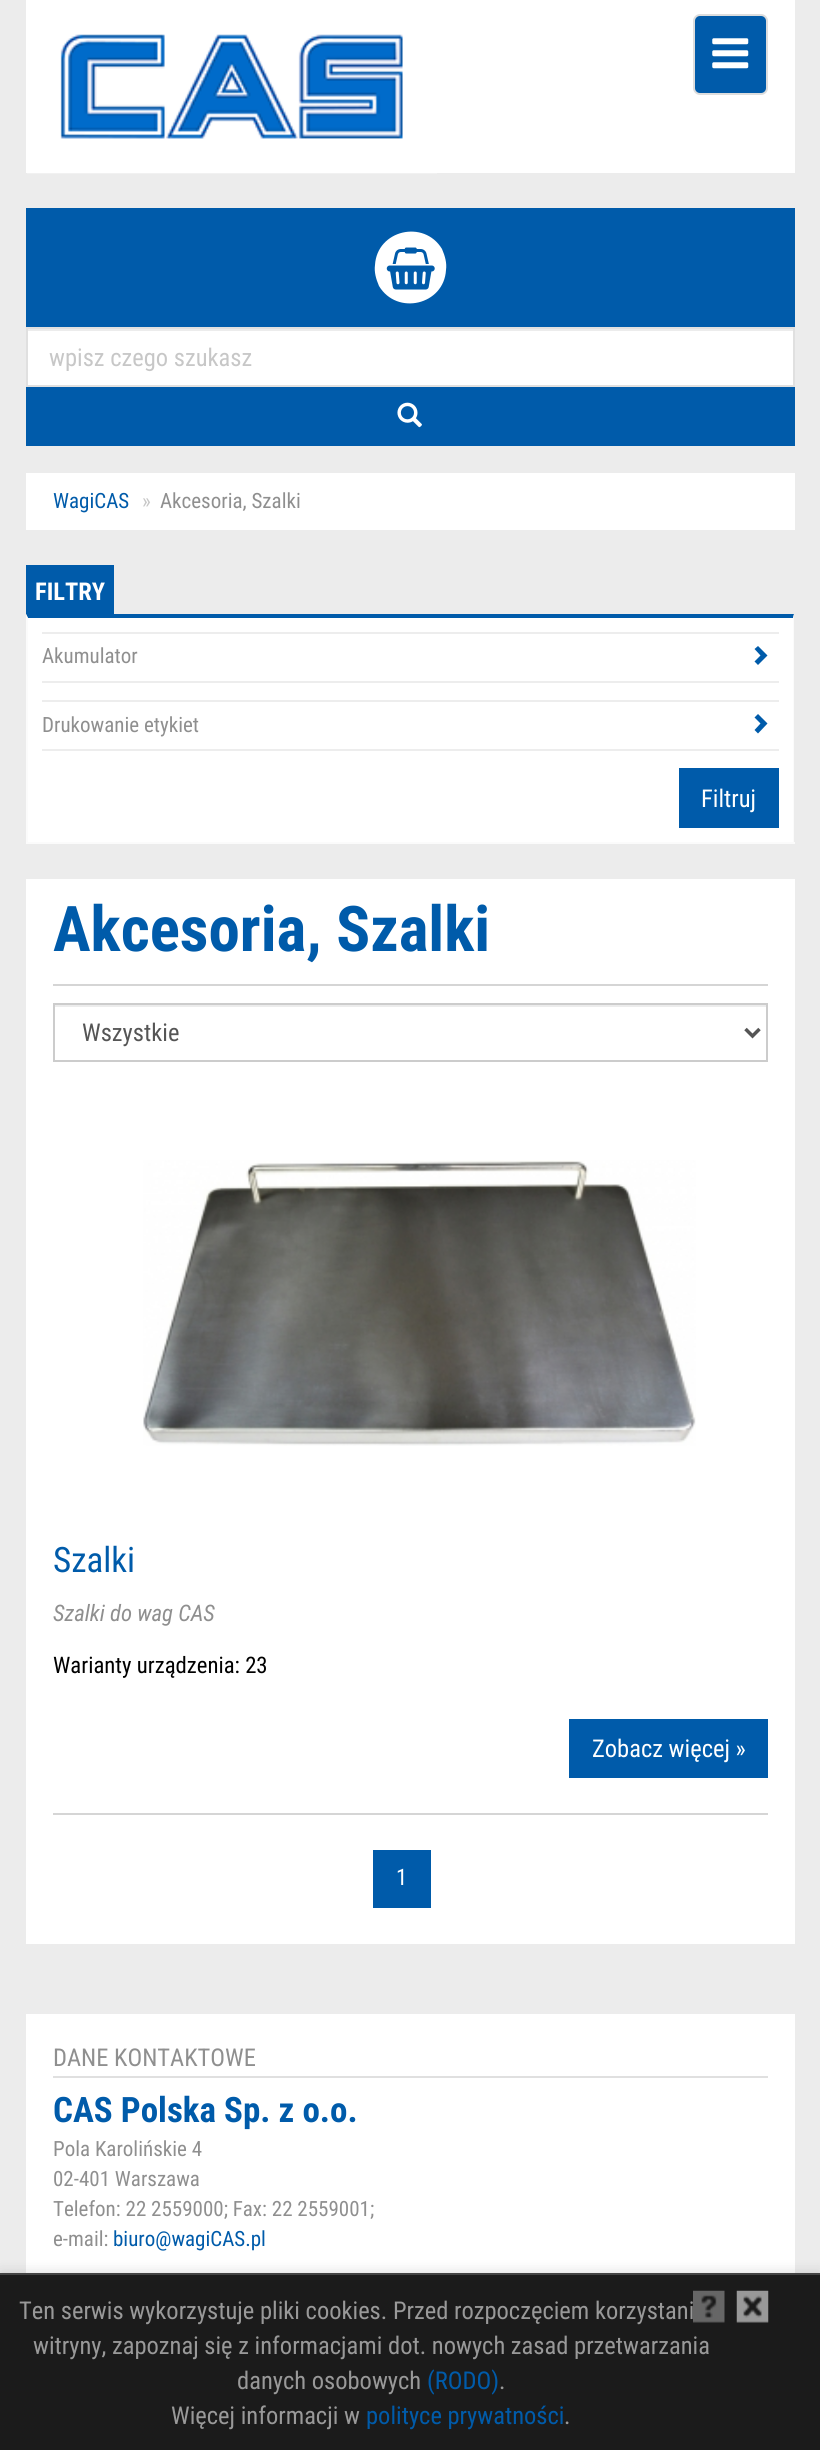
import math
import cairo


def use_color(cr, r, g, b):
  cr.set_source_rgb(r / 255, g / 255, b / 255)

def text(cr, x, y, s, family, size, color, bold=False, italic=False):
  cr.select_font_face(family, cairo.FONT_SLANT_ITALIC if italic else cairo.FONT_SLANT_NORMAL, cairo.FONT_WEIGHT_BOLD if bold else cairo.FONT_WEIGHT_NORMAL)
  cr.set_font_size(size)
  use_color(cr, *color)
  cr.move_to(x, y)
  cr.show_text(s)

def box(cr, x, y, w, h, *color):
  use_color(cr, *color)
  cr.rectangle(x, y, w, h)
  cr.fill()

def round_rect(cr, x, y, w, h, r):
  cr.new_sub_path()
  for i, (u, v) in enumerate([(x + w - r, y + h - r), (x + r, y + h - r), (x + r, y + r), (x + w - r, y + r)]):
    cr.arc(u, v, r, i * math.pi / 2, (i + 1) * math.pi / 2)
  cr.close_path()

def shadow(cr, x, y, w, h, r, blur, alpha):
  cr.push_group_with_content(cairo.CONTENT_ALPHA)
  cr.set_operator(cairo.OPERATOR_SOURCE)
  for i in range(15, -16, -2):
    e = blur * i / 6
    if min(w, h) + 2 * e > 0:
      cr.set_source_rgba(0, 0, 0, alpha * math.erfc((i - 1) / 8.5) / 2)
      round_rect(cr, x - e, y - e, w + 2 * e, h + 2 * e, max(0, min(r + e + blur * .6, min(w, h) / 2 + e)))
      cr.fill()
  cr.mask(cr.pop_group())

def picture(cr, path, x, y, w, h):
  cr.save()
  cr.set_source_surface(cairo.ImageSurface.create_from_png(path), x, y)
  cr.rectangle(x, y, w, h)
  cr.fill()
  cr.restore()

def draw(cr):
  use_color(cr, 236, 236, 236)
  cr.paint()
  box(cr, 26, 0, 769, 173, 255, 255, 255)
  picture(cr, "img_01.png", 27, 34, 410, 140)
  use_color(cr, 0, 91, 170)
  round_rect(cr, 694, 15, 73, 79, 6)
  cr.fill_preserve()
  use_color(cr, 221, 221, 221)
  cr.stroke()
  picture(cr, "img_02.png", 712, 38, 37, 31)
  box(cr, 26, 208, 769, 119, 0, 91, 170)
  use_color(cr, 255, 255, 255)
  cr.new_path()
  cr.move_to(442, 249)
  cr.curve_to(445, 256, 447, 263, 446, 270)
  cr.curve_to(444, 305, 397, 316, 379, 286)
  cr.curve_to(376, 279, 374, 272, 375, 265)
  cr.curve_to(377, 230, 424, 219, 442, 249)
  cr.close_path()
  cr.fill()
  picture(cr, "img_03.png", 386, 247, 49, 43)
  box(cr, 28, 331, 765, 54, 255, 255, 255)
  cr.rectangle(27, 328, 767, 58)
  use_color(cr, 224, 224, 224)
  cr.stroke()
  box(cr, 26, 387, 769, 59, 0, 91, 170)
  picture(cr, "img_04.png", 397, 402, 25, 26)
  box(cr, 26, 473, 769, 57, 255, 255, 255)
  box(cr, 26, 565, 88, 49, 0, 91, 170)
  box(cr, 28, 618, 765, 224, 255, 255, 255)
  use_color(cr, 0, 91, 170)
  cr.new_path()
  cr.move_to(26, 614)
  cr.line_to(794, 614)
  cr.line_to(793, 618)
  cr.line_to(28, 618)
  cr.close_path()
  cr.fill()
  use_color(cr, 251, 251, 251)
  cr.new_path()
  cr.move_to(794, 614)
  cr.line_to(794, 844)
  cr.line_to(793, 842)
  cr.line_to(793, 618)
  cr.close_path()
  cr.fill()
  box(cr, 26, 842, 769, 2, 251, 251, 251)
  cr.new_path()
  cr.move_to(26, 844)
  cr.line_to(26, 614)
  cr.line_to(28, 618)
  cr.line_to(28, 842)
  cr.close_path()
  cr.fill()
  box(cr, 42, 632, 737, 2, 237, 237, 237)
  box(cr, 42, 681, 737, 2, 237, 237, 237)
  use_color(cr, 0, 91, 170)
  cr.new_path()
  cr.move_to(767.5, 655.5)
  cr.line_to(758, 665)
  cr.line_to(754.5, 661.5)
  cr.line_to(760.5, 655.5)
  cr.line_to(754.5, 649)
  cr.line_to(758, 646)
  cr.close_path()
  cr.fill()
  box(cr, 42, 700, 737, 2, 237, 237, 237)
  box(cr, 42, 749, 737, 2, 237, 237, 237)
  use_color(cr, 0, 91, 170)
  cr.new_path()
  cr.move_to(767.5, 723.5)
  cr.line_to(758, 733.5)
  cr.line_to(754.5, 730)
  cr.line_to(760.5, 723.5)
  cr.line_to(754.5, 717.5)
  cr.line_to(758, 714)
  cr.close_path()
  cr.fill()
  box(cr, 679, 768, 100, 60, 0, 91, 170)
  box(cr, 26, 879, 769, 1065, 255, 255, 255)
  box(cr, 53, 984, 715, 2, 213, 213, 213)
  box(cr, 54, 1005, 713, 2, 236, 236, 236)
  cr.rectangle(54, 1004, 713, 57)
  use_color(cr, 204, 204, 204)
  cr.stroke()
  cr.new_path()
  cr.move_to(745.5, 1029)
  cr.line_to(752.5, 1036)
  cr.line_to(759.5, 1029)
  use_color(cr, 85, 85, 85)
  cr.set_line_width(3.5)
  cr.stroke()
  box(cr, 53, 1813, 715, 2, 213, 213, 213)
  picture(cr, "img_05.png", 143, 1160, 553, 286)
  box(cr, 569, 1719, 199, 59, 0, 91, 170)
  box(cr, 373, 1850, 58, 58, 0, 91, 170)
  box(cr, 26, 2014, 769, 259, 255, 255, 255)
  box(cr, 53, 2076, 715, 2, 224, 224, 224)
  use_color(cr, 0, 0, 0)
  shadow(cr, 0, 2273, 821, 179, 0, 7, 0.15)
  box(cr, 0, 2275, 820, 175, 27, 27, 27)
  box(cr, 0, 2273, 820, 2, 68, 68, 68)
  picture(cr, "img_07.png", 736, 2290, 33, 33)
  text(cr, 49, 366, "wpisz czego szukasz", "Roboto Condensed", 24.5, (199, 199, 199))
  text(cr, 53, 508, "WagiCAS", "Roboto Condensed", 21, (0, 91, 170))
  text(cr, 142, 508, "»", "Roboto Condensed", 21, (199, 199, 199))
  text(cr, 160, 508, "Akcesoria, Szalki", "Roboto Condensed", 21, (143, 143, 143))
  text(cr, 35, 600, "FILTRY", "Roboto Condensed", 24.5, (255, 255, 255), bold=True)
  text(cr, 42, 663, "Akumulator", "Roboto Condensed", 21, (143, 143, 143))
  text(cr, 42, 732, "Drukowanie etykiet", "Roboto Condensed", 21, (143, 143, 143))
  text(cr, 701, 807, "Filtruj", "Roboto Condensed", 24.5, (255, 255, 255))
  text(cr, 53, 951, "Akcesoria, Szalki", "Roboto Condensed", 63, (0, 91, 170), bold=True)
  text(cr, 82, 1041, "Wszystkie", "Roboto Condensed", 24.5, (85, 85, 85))
  text(cr, 53, 1572, "Szalki", "Roboto Condensed", 35, (0, 91, 170))
  text(cr, 53, 1621, "Szalki do wag CAS", "Roboto Condensed", 22.75, (143, 143, 143), italic=True)
  text(cr, 53, 1673, "Warianty urządzenia: 23", "Roboto Condensed", 22.75, (0, 0, 0))
  text(cr, 592, 1757, "Zobacz więcej »", "Roboto Condensed", 24.5, (255, 255, 255))
  text(cr, 396, 1885, "1", "Roboto Condensed", 22.75, (255, 255, 255))
  text(cr, 53, 2066, "DANE KONTAKTOWE", "Roboto Condensed", 24.5, (143, 143, 143))
  text(cr, 53, 2122, "CAS Polska Sp. z o.o.", "Roboto Condensed", 35, (0, 91, 170), bold=True)
  text(cr, 53, 2156, "Pola Karolińskie 4", "Roboto Condensed", 21, (143, 143, 143))
  text(cr, 53, 2186, "02-401 Warszawa", "Roboto Condensed", 21, (143, 143, 143))
  text(cr, 53, 2216, "Telefon: 22 2559000; Fax: 22 2559001;", "Roboto Condensed", 21, (143, 143, 143))
  text(cr, 53, 2246, "e-mail:", "Roboto Condensed", 21, (143, 143, 143))
  text(cr, 113, 2246, "biuro@wagiCAS.pl", "Roboto Condensed", 21, (0, 91, 170))
  text(cr, 19, 2319, "Ten serwis wykorzystuje pliki cookies. Przed rozpoczęciem korzystani", "Roboto Condensed", 24.5, (153, 153, 153))
  text(cr, 33, 2354, "witryny, zapoznaj się z informacjami dot. nowych zasad przetwarzania", "Roboto Condensed", 24.5, (153, 153, 153))
  text(cr, 237, 2389, "danych osobowych", "Roboto Condensed", 24.5, (153, 153, 153))
  text(cr, 427, 2389, "(RODO)", "Roboto Condensed", 24.5, (0, 91, 170))
  text(cr, 499, 2389, ".", "Roboto Condensed", 24.5, (153, 153, 153))
  text(cr, 171, 2424, "Więcej informacji w", "Roboto Condensed", 24.5, (153, 153, 153))
  text(cr, 366, 2424, "polityce prywatności", "Roboto Condensed", 24.5, (0, 91, 170))
  text(cr, 564, 2424, ".", "Roboto Condensed", 24.5, (153, 153, 153))
  picture(cr, "img_06.png", 693, 2290, 32, 33)


surface = cairo.ImageSurface(cairo.FORMAT_RGB24, 820, 2450)
cr = cairo.Context(surface)
options = cairo.FontOptions()
options.set_hint_metrics(cairo.HINT_METRICS_OFF)
options.set_hint_style(cairo.HINT_STYLE_NONE)
cr.set_font_options(options)
cr.set_miter_limit(4)
draw(cr)
surface.write_to_png("out.png")
